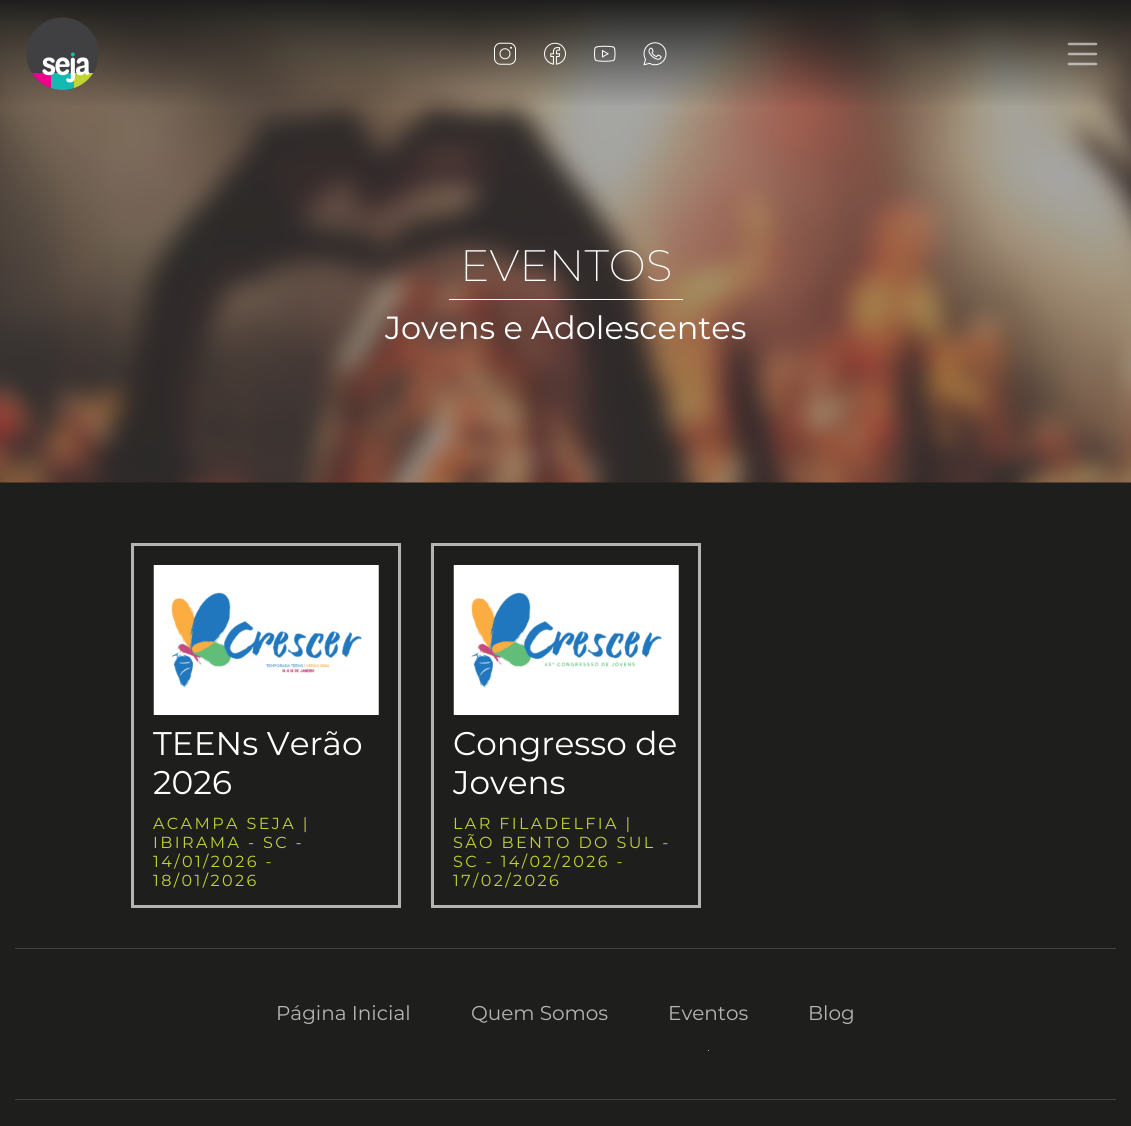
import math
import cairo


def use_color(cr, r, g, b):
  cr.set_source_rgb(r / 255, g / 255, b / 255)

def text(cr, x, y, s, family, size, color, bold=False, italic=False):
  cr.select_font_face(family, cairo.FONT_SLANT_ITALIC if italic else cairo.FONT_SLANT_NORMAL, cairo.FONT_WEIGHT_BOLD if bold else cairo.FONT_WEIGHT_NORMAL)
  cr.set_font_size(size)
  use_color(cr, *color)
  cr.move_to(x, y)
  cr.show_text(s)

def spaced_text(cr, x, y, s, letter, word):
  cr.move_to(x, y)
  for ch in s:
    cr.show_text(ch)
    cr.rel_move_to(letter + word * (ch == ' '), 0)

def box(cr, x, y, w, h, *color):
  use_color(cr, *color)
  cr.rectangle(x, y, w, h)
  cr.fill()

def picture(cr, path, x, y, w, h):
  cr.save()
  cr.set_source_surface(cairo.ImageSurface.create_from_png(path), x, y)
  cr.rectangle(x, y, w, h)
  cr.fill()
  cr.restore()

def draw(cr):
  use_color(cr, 30, 30, 29)
  cr.paint()
  picture(cr, "img_06.png", 0, 1, 1131, 482)
  gradient = cairo.LinearGradient(566, 0, 566, 108)
  gradient.add_color_stop_rgba(0, 0.118, 0.118, 0.114, 1)
  gradient.add_color_stop_rgba(1, 0.118, 0.118, 0.114, 0)
  cr.set_source(gradient)
  cr.rectangle(0, 1, 1131, 105)
  cr.fill()
  picture(cr, "img_01.png", 26, 17, 73, 73)
  picture(cr, "img_02.png", 494, 42, 22, 23)
  picture(cr, "img_03.png", 544, 42, 22, 23)
  picture(cr, "img_04.png", 594, 45, 22, 17)
  picture(cr, "img_05.png", 643, 42, 24, 24)
  cr.new_path()
  cr.move_to(1069, 44)
  cr.line_to(1096, 44)
  cr.move_to(1069, 54)
  cr.line_to(1096, 54)
  cr.move_to(1069, 64)
  cr.line_to(1096, 64)
  cr.set_source_rgba(1, 1, 1, 0.55)
  cr.set_line_width(2.5)
  cr.set_line_cap(cairo.LINE_CAP_ROUND)
  cr.stroke()
  box(cr, 449, 299, 234, 1, 255, 255, 255)
  cr.rectangle(132.5, 544.5, 267, 362)
  use_color(cr, 180, 180, 180)
  cr.set_line_width(3)
  cr.set_line_cap(cairo.LINE_CAP_BUTT)
  cr.stroke()
  picture(cr, "img_07.png", 153, 565, 226, 150)
  cr.rectangle(432.5, 544.5, 267, 362)
  cr.stroke()
  picture(cr, "img_08.png", 453, 565, 226, 150)
  box(cr, 15, 948, 1101, 1, 68, 68, 67)
  box(cr, 708, 1050, 1, 1, 180, 180, 180)
  box(cr, 15, 1099, 1101, 1, 68, 68, 67)
  text(cr, 460, 281, "EVENTOS", "Montserrat ExtraLight", 44, (255, 255, 255))
  text(cr, 385, 339, "Jovens e Adolescentes", "Montserrat", 32, (255, 255, 255))
  text(cr, 153, 755, "TEENs Verão", "Montserrat", 32.75, (255, 255, 255))
  text(cr, 153, 794, "2026", "Montserrat", 32.75, (255, 255, 255))
  cr.set_font_size(16)
  use_color(cr, 193, 212, 49)
  spaced_text(cr, 153, 829, "ACAMPA SEJA |", 2.4, 0)
  spaced_text(cr, 153, 848, "IBIRAMA - SC -", 2.4, 0)
  spaced_text(cr, 153, 867, "14/01/2026 -", 2.4, 0)
  spaced_text(cr, 153, 886, "18/01/2026", 2.4, 0)
  text(cr, 453, 755, "Congresso de", "Montserrat", 32.75, (255, 255, 255))
  text(cr, 453, 794, "Jovens", "Montserrat", 32.75, (255, 255, 255))
  cr.set_font_size(16)
  use_color(cr, 193, 212, 49)
  spaced_text(cr, 453, 829, "LAR FILADELFIA |", 2.4, 0)
  spaced_text(cr, 453, 848, "SÃO BENTO DO SUL -", 2.4, 0)
  spaced_text(cr, 453, 867, "SC - 14/02/2026 -", 2.4, 0)
  spaced_text(cr, 453, 886, "17/02/2026", 2.4, 0)
  text(cr, 276, 1020, "Página Inicial", "Montserrat", 20, (180, 180, 180))
  text(cr, 471, 1020, "Quem Somos", "Montserrat", 20, (180, 180, 180))
  text(cr, 668, 1020, "Eventos", "Montserrat", 20, (180, 180, 180))
  text(cr, 808, 1020, "Blog", "Montserrat", 20, (180, 180, 180))


surface = cairo.ImageSurface(cairo.FORMAT_RGB24, 1131, 1126)
cr = cairo.Context(surface)
options = cairo.FontOptions()
options.set_hint_metrics(cairo.HINT_METRICS_OFF)
options.set_hint_style(cairo.HINT_STYLE_NONE)
cr.set_font_options(options)
cr.set_miter_limit(4)
draw(cr)
surface.write_to_png("out.png")
